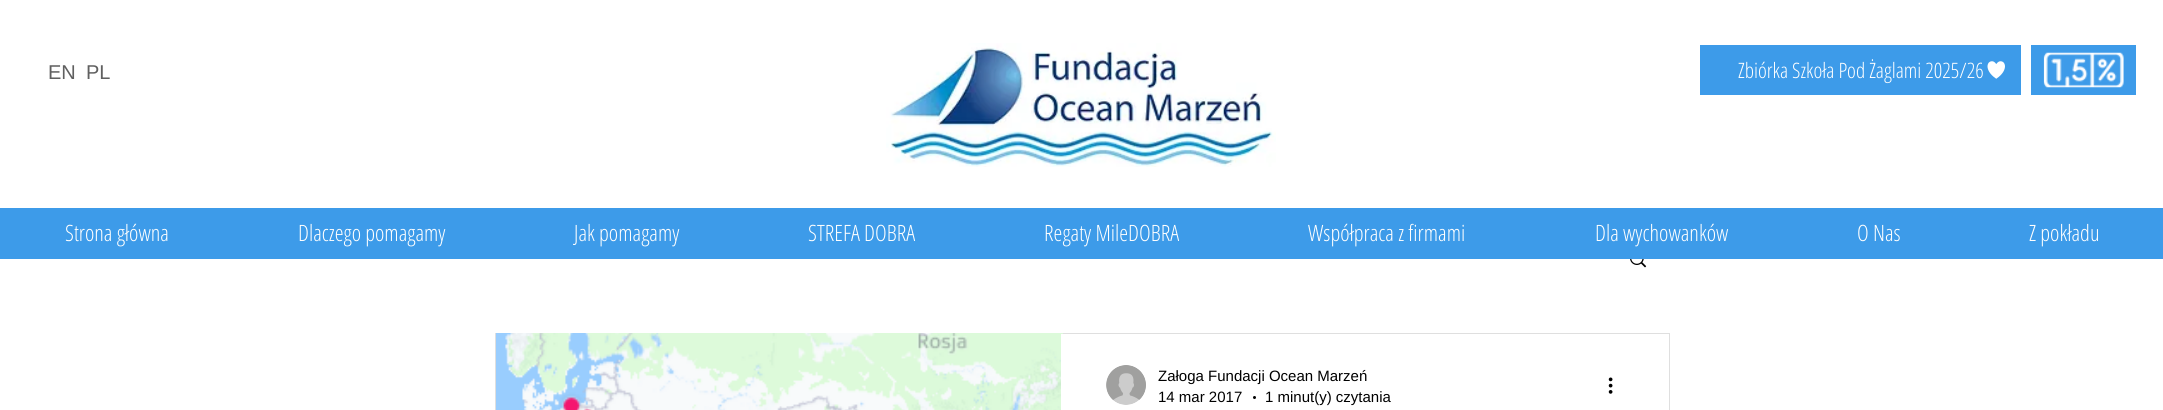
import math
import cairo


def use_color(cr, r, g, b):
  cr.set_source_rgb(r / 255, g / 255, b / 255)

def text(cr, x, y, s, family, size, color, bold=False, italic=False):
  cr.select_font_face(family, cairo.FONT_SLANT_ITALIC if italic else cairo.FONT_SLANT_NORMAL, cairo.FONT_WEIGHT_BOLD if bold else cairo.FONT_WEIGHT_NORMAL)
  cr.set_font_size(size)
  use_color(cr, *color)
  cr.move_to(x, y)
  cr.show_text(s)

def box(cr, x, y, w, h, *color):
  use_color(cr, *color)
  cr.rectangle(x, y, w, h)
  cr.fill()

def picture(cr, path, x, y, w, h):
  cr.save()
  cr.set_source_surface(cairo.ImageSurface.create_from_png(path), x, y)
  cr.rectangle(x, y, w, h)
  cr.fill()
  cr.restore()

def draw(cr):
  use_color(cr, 255, 255, 255)
  cr.paint()
  picture(cr, "img_01.png", 886, 43, 390, 124)
  box(cr, 2031, 45, 105, 50, 61, 155, 233)
  box(cr, 1700, 45, 321, 50, 61, 155, 233)
  picture(cr, "img_02.png", 1987, 61, 18, 18)
  picture(cr, "img_03.png", 2043, 52, 81, 36)
  box(cr, 0, 208, 2163, 51, 61, 155, 233)
  picture(cr, "img_04.png", 1630, 259, 17, 9)
  cr.rectangle(495.5, 333.5, 1174, 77)
  use_color(cr, 223, 223, 223)
  cr.set_line_width(1)
  cr.stroke()
  picture(cr, "img_06.png", 1060, 333, 3, 77)
  picture(cr, "img_05.png", 496, 333, 567, 77)
  box(cr, 1061, 334, 2, 76, 255, 255, 255)
  picture(cr, "img_07.png", 1106, 365, 40, 40)
  use_color(cr, 0, 0, 0)
  cr.arc(1254.5, 397.5, 1.5, 0, 2 * math.pi)
  cr.fill()
  picture(cr, "img_08.png", 1608, 377, 5, 17)
  text(cr, 48, 79, "EN", "Liberation Sans", 20, (96, 96, 96))
  text(cr, 86, 79, "PL", "Liberation Sans", 20, (96, 96, 96))
  text(cr, 1738, 78, "Zbiórka Szkoła Pod Żaglami 2025/26", "Open Sans Condensed Light", 21.25, (255, 255, 255))
  text(cr, 65, 241, "Strona główna", "Open Sans Condensed Light", 22.5, (255, 255, 255))
  text(cr, 298, 241, "Dlaczego pomagamy", "Open Sans Condensed Light", 22.5, (255, 255, 255))
  text(cr, 574, 241, "Jak pomagamy", "Open Sans Condensed Light", 22.5, (255, 255, 255))
  text(cr, 808, 241, "STREFA DOBRA", "Open Sans Condensed Light", 22.5, (255, 255, 255))
  text(cr, 1044, 241, "Regaty MileDOBRA", "Open Sans Condensed Light", 22.5, (255, 255, 255))
  text(cr, 1308, 241, "Współpraca z firmami", "Open Sans Condensed Light", 22.5, (255, 255, 255))
  text(cr, 1595, 241, "Dla wychowanków", "Open Sans Condensed Light", 22.5, (255, 255, 255))
  text(cr, 1857, 241, "O Nas", "Open Sans Condensed Light", 22.5, (255, 255, 255))
  text(cr, 2029, 241, "Z pokładu", "Open Sans Condensed Light", 22.5, (255, 255, 255))
  text(cr, 1158, 381, "Załoga Fundacji Ocean Marzeń", "Liberation Sans", 15, (0, 0, 0))
  text(cr, 1158, 402, "14 mar 2017", "Liberation Sans", 15, (0, 0, 0))
  text(cr, 1265, 402, "1 minut(y) czytania", "Liberation Sans", 15, (0, 0, 0))


surface = cairo.ImageSurface(cairo.FORMAT_RGB24, 2163, 410)
cr = cairo.Context(surface)
options = cairo.FontOptions()
options.set_hint_metrics(cairo.HINT_METRICS_OFF)
options.set_hint_style(cairo.HINT_STYLE_NONE)
cr.set_font_options(options)
cr.set_miter_limit(4)
draw(cr)
surface.write_to_png("out.png")
